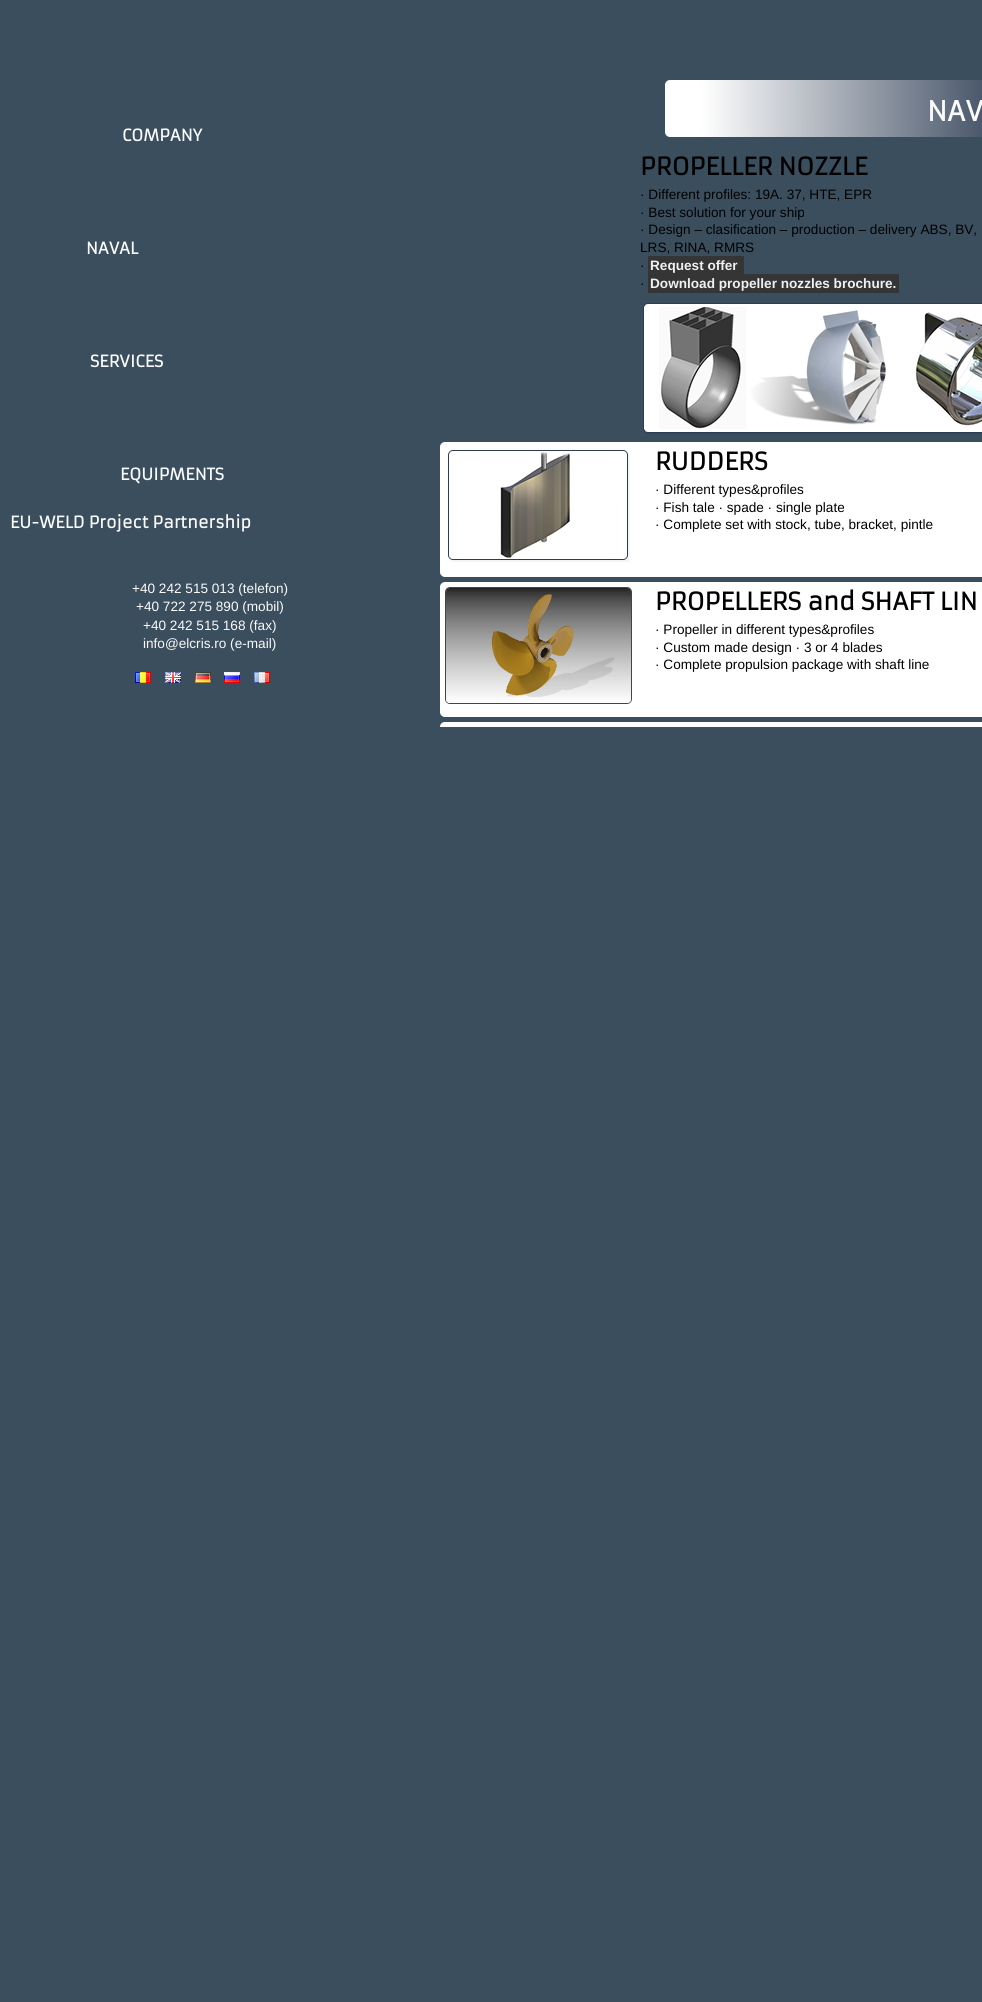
import math
import cairo


def use_color(cr, r, g, b):
  cr.set_source_rgb(r / 255, g / 255, b / 255)

def text(cr, x, y, s, family, size, color, bold=False, italic=False):
  cr.select_font_face(family, cairo.FONT_SLANT_ITALIC if italic else cairo.FONT_SLANT_NORMAL, cairo.FONT_WEIGHT_BOLD if bold else cairo.FONT_WEIGHT_NORMAL)
  cr.set_font_size(size)
  use_color(cr, *color)
  cr.move_to(x, y)
  cr.show_text(s)

def box(cr, x, y, w, h, *color):
  use_color(cr, *color)
  cr.rectangle(x, y, w, h)
  cr.fill()

def round_rect(cr, x, y, w, h, r):
  cr.new_sub_path()
  for i, (u, v) in enumerate([(x + w - r, y + h - r), (x + r, y + h - r), (x + r, y + r), (x + w - r, y + r)]):
    cr.arc(u, v, r, i * math.pi / 2, (i + 1) * math.pi / 2)
  cr.close_path()

def picture(cr, path, x, y, w, h):
  cr.save()
  cr.set_source_surface(cairo.ImageSurface.create_from_png(path), x, y)
  cr.rectangle(x, y, w, h)
  cr.fill()
  cr.restore()

def draw(cr):
  use_color(cr, 58, 78, 94)
  cr.paint()
  picture(cr, "img_01.png", 135, 672, 16, 11)
  picture(cr, "img_02.png", 165, 672, 16, 11)
  picture(cr, "img_03.png", 195, 672, 16, 11)
  picture(cr, "img_04.png", 224, 672, 16, 11)
  picture(cr, "img_05.png", 254, 672, 16, 11)
  gradient = cairo.LinearGradient(665, 109, 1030, 108)
  gradient.add_color_stop_rgba(0.1, 1, 1, 1, 1)
  gradient.add_color_stop_rgba(1, 0.176, 0.235, 0.325, 1)
  cr.set_source(gradient)
  round_rect(cr, 665, 80, 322, 57, 5)
  cr.fill()
  box(cr, 648, 256, 96, 18, 53, 53, 53)
  box(cr, 648, 274, 251, 19, 53, 53, 53)
  picture(cr, "img_06.png", 643, 303, 339, 132)
  use_color(cr, 255, 255, 255)
  round_rect(cr, 440, 442, 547, 135, 5)
  cr.fill()
  picture(cr, "img_07.png", 448, 450, 182, 112)
  round_rect(cr, 440, 582, 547, 135, 5)
  cr.fill()
  round_rect(cr, 445.5, 587.5, 186, 116, 4.5)
  use_color(cr, 68, 68, 68)
  cr.set_line_width(1)
  cr.stroke()
  picture(cr, "img_08.png", 446, 588, 185, 115)
  use_color(cr, 255, 255, 255)
  cr.new_path()
  cr.move_to(445, 722)
  cr.line_to(982, 722)
  cr.curve_to(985, 722, 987, 724, 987, 727)
  cr.line_to(440, 727)
  cr.curve_to(440, 724, 442, 722, 445, 722)
  cr.close_path()
  cr.fill()
  text(cr, 122, 141, "COMPANY", "Armata", 16, (250, 250, 250), bold=True)
  text(cr, 86, 254, "NAVAL", "Armata", 16, (250, 250, 250), bold=True)
  text(cr, 90, 367, "SERVICES", "Armata", 16, (250, 250, 250), bold=True)
  text(cr, 120, 480, "EQUIPMENTS", "Armata", 16, (250, 250, 250), bold=True)
  text(cr, 10, 528, "EU-WELD Project Partnership", "Armata", 16, (250, 250, 250), bold=True)
  text(cr, 132, 593, "+40 242 515 013 (telefon)", "Liberation Sans", 13.6, (250, 250, 250))
  text(cr, 136, 611, "+40 722 275 890 (mobil)", "Liberation Sans", 13.6, (250, 250, 250))
  text(cr, 143, 630, "+40 242 515 168 (fax)", "Liberation Sans", 13.6, (250, 250, 250))
  text(cr, 143, 648, "info@elcris.ro (e-mail)", "Liberation Sans", 13.6, (250, 250, 250))
  text(cr, 927, 121, "NAV", "Armata", 27, (250, 250, 250), bold=True)
  text(cr, 640, 175, "PROPELLER NOZZLE", "Armata", 23.75, (0, 0, 0), bold=True)
  text(cr, 640, 199, "· Different profiles: 19A. 37, HTE, EPR", "Liberation Sans", 13.6, (0, 0, 0))
  text(cr, 640, 217, "· Best solution for your ship", "Liberation Sans", 13.6, (0, 0, 0))
  text(cr, 640, 234, "· Design – clasification – production – delivery ABS, BV,", "Liberation Sans", 13.6, (0, 0, 0))
  text(cr, 640, 252, "LRS, RINA, RMRS", "Liberation Sans", 13.6, (0, 0, 0))
  text(cr, 640, 270, "·", "Liberation Sans", 13.6, (0, 0, 0))
  text(cr, 650, 270, "Request offer", "Liberation Sans", 13.6, (240, 240, 240), bold=True)
  text(cr, 640, 288, "·", "Liberation Sans", 13.6, (0, 0, 0))
  text(cr, 650, 288, "Download propeller nozzles brochure.", "Liberation Sans", 13.6, (240, 240, 240), bold=True)
  text(cr, 655, 470, "RUDDERS", "Armata", 23.75, (0, 0, 0), bold=True)
  text(cr, 655, 494, "· Different types&profiles", "Liberation Sans", 13.6, (0, 0, 0))
  text(cr, 655, 512, "· Fish tale · spade · single plate", "Liberation Sans", 13.6, (0, 0, 0))
  text(cr, 655, 529, "· Complete set with stock, tube, bracket, pintle", "Liberation Sans", 13.6, (0, 0, 0))
  text(cr, 655, 610, "PROPELLERS and SHAFT LIN", "Armata", 23.75, (0, 0, 0), bold=True)
  text(cr, 655, 634, "· Propeller in different types&profiles", "Liberation Sans", 13.6, (0, 0, 0))
  text(cr, 655, 652, "· Custom made design · 3 or 4 blades", "Liberation Sans", 13.6, (0, 0, 0))
  text(cr, 655, 669, "· Complete propulsion package with shaft line", "Liberation Sans", 13.6, (0, 0, 0))


surface = cairo.ImageSurface(cairo.FORMAT_RGB24, 982, 2002)
cr = cairo.Context(surface)
options = cairo.FontOptions()
options.set_hint_metrics(cairo.HINT_METRICS_OFF)
options.set_hint_style(cairo.HINT_STYLE_NONE)
cr.set_font_options(options)
cr.set_miter_limit(4)
draw(cr)
surface.write_to_png("out.png")
